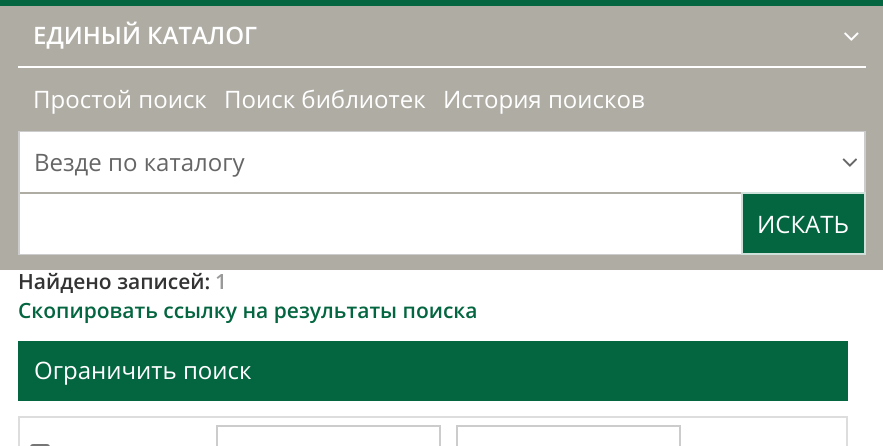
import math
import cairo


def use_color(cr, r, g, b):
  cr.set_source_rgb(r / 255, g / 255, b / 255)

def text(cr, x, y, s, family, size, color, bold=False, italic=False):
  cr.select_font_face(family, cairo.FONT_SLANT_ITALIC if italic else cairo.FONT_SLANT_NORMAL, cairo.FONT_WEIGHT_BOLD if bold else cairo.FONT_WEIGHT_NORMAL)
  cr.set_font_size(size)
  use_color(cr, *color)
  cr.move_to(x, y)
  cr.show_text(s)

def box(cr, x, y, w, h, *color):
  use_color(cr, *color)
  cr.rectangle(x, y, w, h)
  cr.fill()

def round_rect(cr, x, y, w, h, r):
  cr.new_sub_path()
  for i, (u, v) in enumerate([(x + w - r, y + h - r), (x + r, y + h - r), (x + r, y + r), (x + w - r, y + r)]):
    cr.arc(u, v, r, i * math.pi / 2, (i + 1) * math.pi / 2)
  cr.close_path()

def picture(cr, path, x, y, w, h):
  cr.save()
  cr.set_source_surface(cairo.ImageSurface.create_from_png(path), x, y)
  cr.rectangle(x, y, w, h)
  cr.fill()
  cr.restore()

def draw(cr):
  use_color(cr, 255, 255, 255)
  cr.paint()
  box(cr, 0, 6, 883, 264, 175, 172, 164)
  box(cr, 0, 0, 883, 6, 4, 102, 64)
  picture(cr, "img_01.png", 844, 32, 15, 9)
  box(cr, 18, 66, 848, 2, 255, 255, 255)
  cr.rectangle(19, 132, 846, 122)
  use_color(cr, 204, 204, 204)
  cr.stroke()
  box(cr, 20, 132, 844, 60, 255, 255, 255)
  picture(cr, "img_02.png", 842, 158, 15, 9)
  box(cr, 20, 194, 721, 60, 255, 255, 255)
  use_color(cr, 4, 102, 64)
  cr.rectangle(742, 193, 123, 61)
  cr.fill_preserve()
  use_color(cr, 205, 224, 217)
  cr.stroke()
  box(cr, 18, 341, 830, 60, 4, 102, 64)
  cr.rectangle(19, 417, 828, 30)
  use_color(cr, 221, 221, 221)
  cr.stroke()
  round_rect(cr, 31, 445, 18, 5, 2)
  use_color(cr, 118, 118, 118)
  cr.stroke()
  cr.rectangle(217, 426, 223, 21)
  use_color(cr, 204, 204, 204)
  cr.stroke()
  cr.rectangle(457, 426, 223, 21)
  cr.stroke()
  text(cr, 33, 44, "ЕДИНЫЙ КАТАЛОГ", "Open Sans SemiBold", 24, (255, 255, 255))
  text(cr, 33, 108, "Простой поиск", "Open Sans", 24, (255, 255, 255))
  text(cr, 224, 108, "Поиск библиотек", "Open Sans", 24, (255, 255, 255))
  text(cr, 443, 108, "История поисков", "Open Sans", 24, (255, 255, 255))
  text(cr, 34, 171, "Везде по каталогу", "Open Sans", 24, (102, 102, 102))
  text(cr, 757, 233, "ИСКАТЬ", "Open Sans", 24, (255, 255, 255))
  text(cr, 18, 289, "Найдено записей:", "Open Sans SemiBold", 21, (51, 51, 51))
  text(cr, 215, 289, "1", "Open Sans SemiBold", 21, (153, 153, 153))
  text(cr, 18, 318, "Скопировать ссылку на результаты поиска", "Open Sans SemiBold", 21, (4, 102, 64))
  text(cr, 34, 379, "Ограничить поиск", "Open Sans", 24, (255, 255, 255))


surface = cairo.ImageSurface(cairo.FORMAT_RGB24, 883, 446)
cr = cairo.Context(surface)
options = cairo.FontOptions()
options.set_hint_metrics(cairo.HINT_METRICS_OFF)
options.set_hint_style(cairo.HINT_STYLE_NONE)
cr.set_font_options(options)
cr.set_miter_limit(4)
draw(cr)
surface.write_to_png("out.png")
